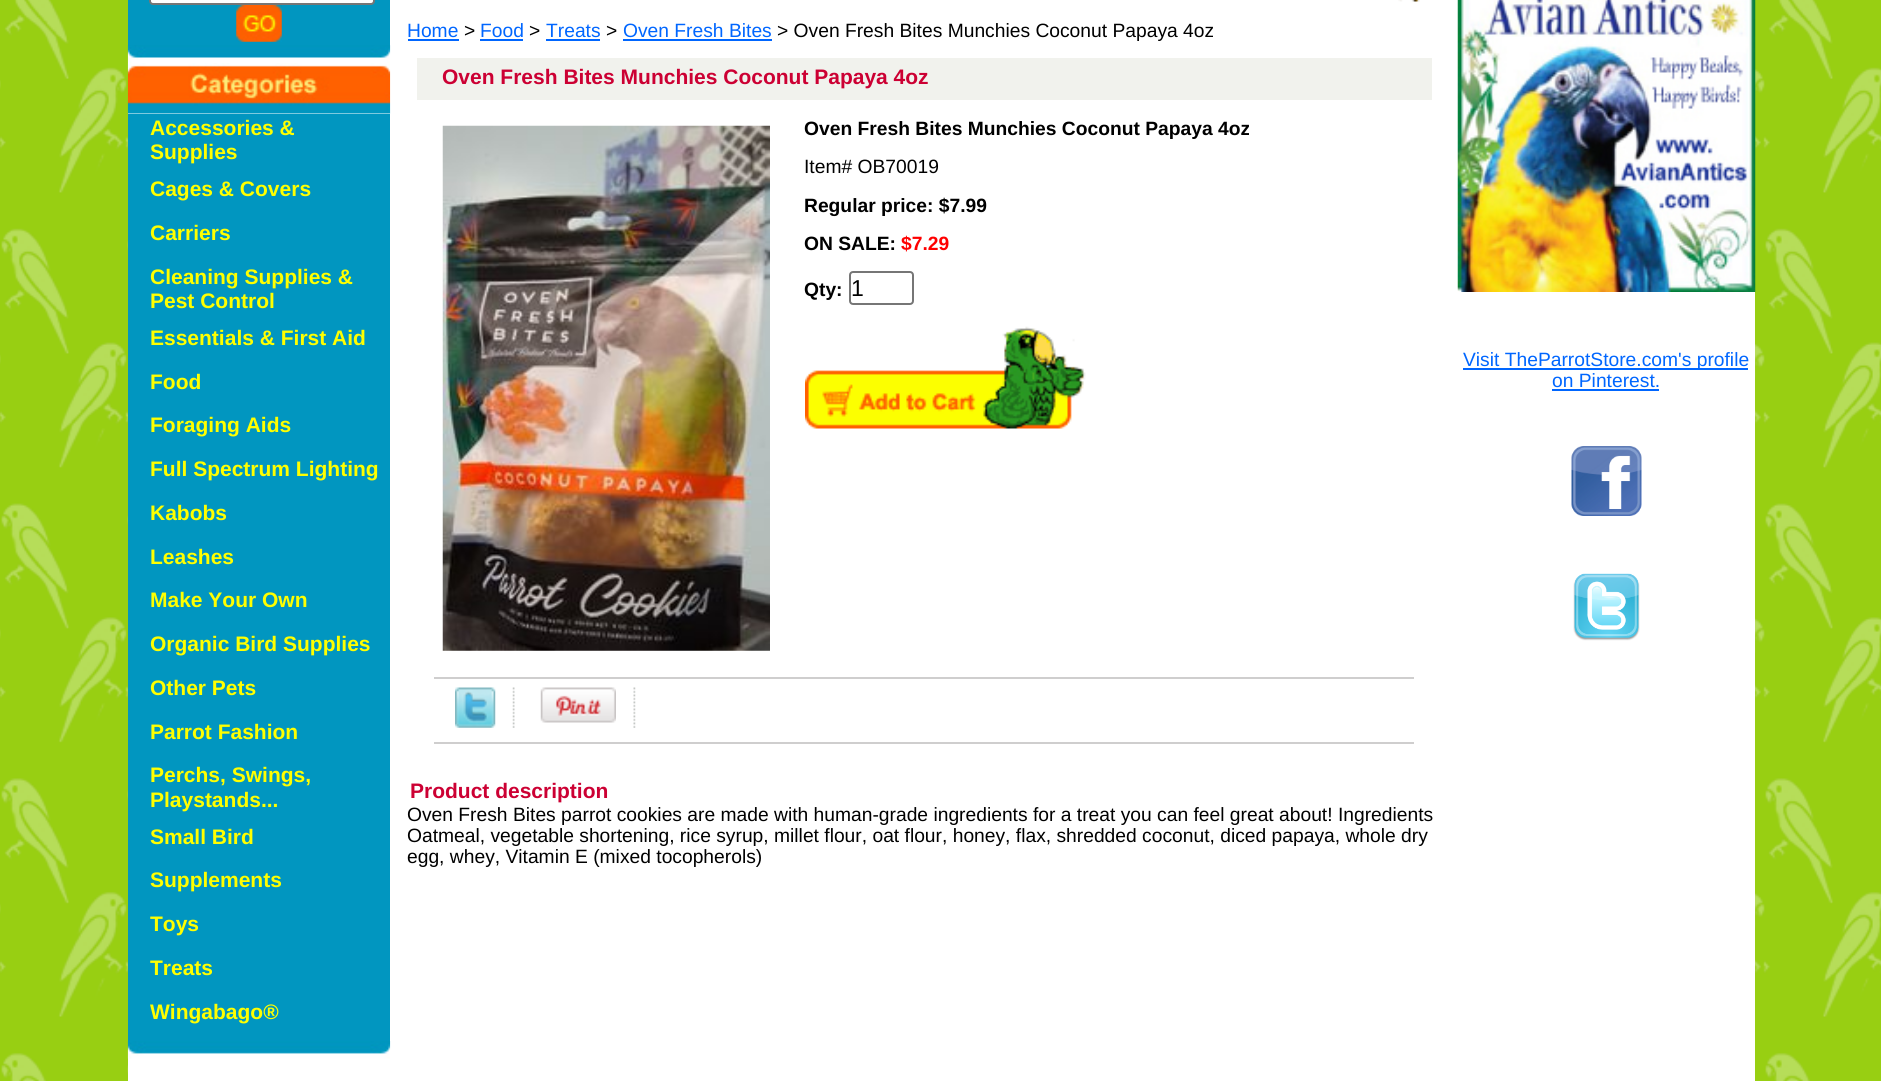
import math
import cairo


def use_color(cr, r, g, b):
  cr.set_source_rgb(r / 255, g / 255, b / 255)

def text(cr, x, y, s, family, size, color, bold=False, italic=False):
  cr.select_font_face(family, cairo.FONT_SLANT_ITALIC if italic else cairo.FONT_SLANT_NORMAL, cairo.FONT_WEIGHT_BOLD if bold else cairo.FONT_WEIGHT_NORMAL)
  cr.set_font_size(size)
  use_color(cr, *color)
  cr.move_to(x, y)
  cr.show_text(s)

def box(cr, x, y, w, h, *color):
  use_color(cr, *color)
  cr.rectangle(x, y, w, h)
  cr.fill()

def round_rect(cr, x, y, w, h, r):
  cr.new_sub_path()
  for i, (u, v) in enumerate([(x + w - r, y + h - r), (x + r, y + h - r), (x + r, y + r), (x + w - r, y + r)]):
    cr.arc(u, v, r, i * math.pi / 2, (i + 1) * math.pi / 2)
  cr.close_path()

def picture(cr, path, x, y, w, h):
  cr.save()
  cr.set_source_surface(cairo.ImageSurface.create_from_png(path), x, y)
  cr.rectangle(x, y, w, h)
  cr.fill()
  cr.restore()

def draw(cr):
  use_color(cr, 255, 255, 255)
  cr.paint()
  picture(cr, "img_01.png", 0, 0, 1881, 1081)
  box(cr, 128, 0, 1330, 1081, 255, 255, 255)
  box(cr, 128, 0, 262, 46, 1, 150, 192)
  use_color(cr, 255, 255, 255)
  round_rect(cr, 150, -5, 224, 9, 3)
  cr.fill_preserve()
  use_color(cr, 118, 118, 118)
  cr.stroke()
  picture(cr, "img_02.png", 236, 5, 46, 37)
  picture(cr, "img_03.png", 127, 45, 264, 18)
  picture(cr, "img_04.png", 127, 63, 264, 51)
  box(cr, 128, 114, 262, 927, 1, 150, 192)
  picture(cr, "img_05.png", 127, 1041, 264, 18)
  picture(cr, "img_06.png", 1398, 0, 22, 2)
  box(cr, 408, 39, 51, 2, 0, 102, 255)
  box(cr, 480, 39, 43, 2, 0, 102, 255)
  box(cr, 546, 39, 54, 2, 0, 102, 255)
  box(cr, 623, 39, 149, 2, 0, 102, 255)
  box(cr, 417, 58, 1015, 42, 241, 242, 237)
  picture(cr, "img_07.png", 442, 125, 328, 526)
  round_rect(cr, 850, 272, 63, 32, 3)
  use_color(cr, 118, 118, 118)
  cr.stroke()
  picture(cr, "img_08.png", 805, 326, 281, 103)
  box(cr, 434, 677, 980, 2, 207, 206, 206)
  picture(cr, "img_09.png", 455, 687, 41, 41)
  picture(cr, "img_10.png", 512, 687, 3, 41)
  picture(cr, "img_11.png", 540, 687, 76, 36)
  picture(cr, "img_12.png", 633, 687, 3, 41)
  box(cr, 434, 742, 980, 2, 207, 206, 206)
  box(cr, 1458, 292, 297, 789, 255, 255, 255)
  picture(cr, "img_13.png", 1457, 0, 299, 292)
  box(cr, 1463, 368, 285, 2, 0, 102, 255)
  box(cr, 1552, 389, 107, 2, 0, 102, 255)
  picture(cr, "img_14.png", 1571, 446, 71, 70)
  picture(cr, "img_15.png", 1573, 573, 67, 68)
  text(cr, 150, 135, "Accessories &", "Liberation Sans", 21, (255, 255, 0), bold=True)
  text(cr, 150, 159, "Supplies", "Liberation Sans", 21, (255, 255, 0), bold=True)
  text(cr, 150, 196, "Cages & Covers", "Liberation Sans", 21, (255, 255, 0), bold=True)
  text(cr, 150, 240, "Carriers", "Liberation Sans", 21, (255, 255, 0), bold=True)
  text(cr, 150, 284, "Cleaning Supplies &", "Liberation Sans", 21, (255, 255, 0), bold=True)
  text(cr, 150, 308, "Pest Control", "Liberation Sans", 21, (255, 255, 0), bold=True)
  text(cr, 150, 345, "Essentials & First Aid", "Liberation Sans", 21, (255, 255, 0), bold=True)
  text(cr, 150, 389, "Food", "Liberation Sans", 21, (255, 255, 0), bold=True)
  text(cr, 150, 432, "Foraging Aids", "Liberation Sans", 21, (255, 255, 0), bold=True)
  text(cr, 150, 476, "Full Spectrum Lighting", "Liberation Sans", 21, (255, 255, 0), bold=True)
  text(cr, 150, 520, "Kabobs", "Liberation Sans", 21, (255, 255, 0), bold=True)
  text(cr, 150, 564, "Leashes", "Liberation Sans", 21, (255, 255, 0), bold=True)
  text(cr, 150, 607, "Make Your Own", "Liberation Sans", 21, (255, 255, 0), bold=True)
  text(cr, 150, 651, "Organic Bird Supplies", "Liberation Sans", 21, (255, 255, 0), bold=True)
  text(cr, 150, 695, "Other Pets", "Liberation Sans", 21, (255, 255, 0), bold=True)
  text(cr, 150, 739, "Parrot Fashion", "Liberation Sans", 21, (255, 255, 0), bold=True)
  text(cr, 150, 782, "Perchs, Swings,", "Liberation Sans", 21, (255, 255, 0), bold=True)
  text(cr, 150, 807, "Playstands...", "Liberation Sans", 21, (255, 255, 0), bold=True)
  text(cr, 150, 844, "Small Bird", "Liberation Sans", 21, (255, 255, 0), bold=True)
  text(cr, 150, 887, "Supplements", "Liberation Sans", 21, (255, 255, 0), bold=True)
  text(cr, 150, 931, "Toys", "Liberation Sans", 21, (255, 255, 0), bold=True)
  text(cr, 150, 975, "Treats", "Liberation Sans", 21, (255, 255, 0), bold=True)
  text(cr, 150, 1019, "Wingabago®", "Liberation Sans", 21, (255, 255, 0), bold=True)
  text(cr, 407, 37, "Home", "Liberation Sans", 19.25, (0, 102, 255))
  text(cr, 464, 37, ">", "Liberation Sans", 19.25, (0, 0, 0))
  text(cr, 480, 37, "Food", "Liberation Sans", 19.25, (0, 102, 255))
  text(cr, 529, 37, ">", "Liberation Sans", 19.25, (0, 0, 0))
  text(cr, 546, 37, "Treats", "Liberation Sans", 19.25, (0, 102, 255))
  text(cr, 606, 37, ">", "Liberation Sans", 19.25, (0, 0, 0))
  text(cr, 623, 37, "Oven Fresh Bites", "Liberation Sans", 19.25, (0, 102, 255))
  text(cr, 777, 37, "> Oven Fresh Bites Munchies Coconut Papaya 4oz", "Liberation Sans", 19.25, (0, 0, 0))
  text(cr, 442, 84, "Oven Fresh Bites Munchies Coconut Papaya 4oz", "Liberation Sans", 21, (204, 0, 51), bold=True)
  text(cr, 804, 135, "Oven Fresh Bites Munchies Coconut Papaya 4oz", "Liberation Sans", 19.25, (0, 0, 0), bold=True)
  text(cr, 804, 173, "Item# OB70019", "Liberation Sans", 19.25, (0, 0, 0))
  text(cr, 804, 212, "Regular price: $7.99", "Liberation Sans", 19.25, (0, 0, 0), bold=True)
  text(cr, 804, 250, "ON SALE:", "Liberation Sans", 19.25, (0, 0, 0), bold=True)
  text(cr, 901, 250, "$7.29", "Liberation Sans", 19.25, (255, 0, 0), bold=True)
  text(cr, 804, 296, "Qty:", "Liberation Sans", 19.25, (0, 0, 0), bold=True)
  text(cr, 851, 296, "1", "Liberation Sans", 23, (0, 0, 0))
  text(cr, 410, 798, "Product description", "Liberation Sans", 21, (204, 0, 51), bold=True)
  text(cr, 407, 821, "Oven Fresh Bites parrot cookies are made with human-grade ingredients for a treat you can feel great about! Ingredients", "Liberation Sans", 19.25, (0, 0, 0))
  text(cr, 407, 842, "Oatmeal, vegetable shortening, rice syrup, millet flour, oat flour, honey, flax, shredded coconut, diced papaya, whole dry", "Liberation Sans", 19.25, (0, 0, 0))
  text(cr, 407, 863, "egg, whey, Vitamin E (mixed tocopherols)", "Liberation Sans", 19.25, (0, 0, 0))
  text(cr, 1463, 366, "Visit TheParrotStore.com's profile", "Liberation Sans", 19.25, (0, 102, 255))
  text(cr, 1552, 387, "on Pinterest.", "Liberation Sans", 19.25, (0, 102, 255))


surface = cairo.ImageSurface(cairo.FORMAT_RGB24, 1881, 1081)
cr = cairo.Context(surface)
options = cairo.FontOptions()
options.set_hint_metrics(cairo.HINT_METRICS_OFF)
options.set_hint_style(cairo.HINT_STYLE_NONE)
cr.set_font_options(options)
cr.set_miter_limit(4)
draw(cr)
surface.write_to_png("out.png")
